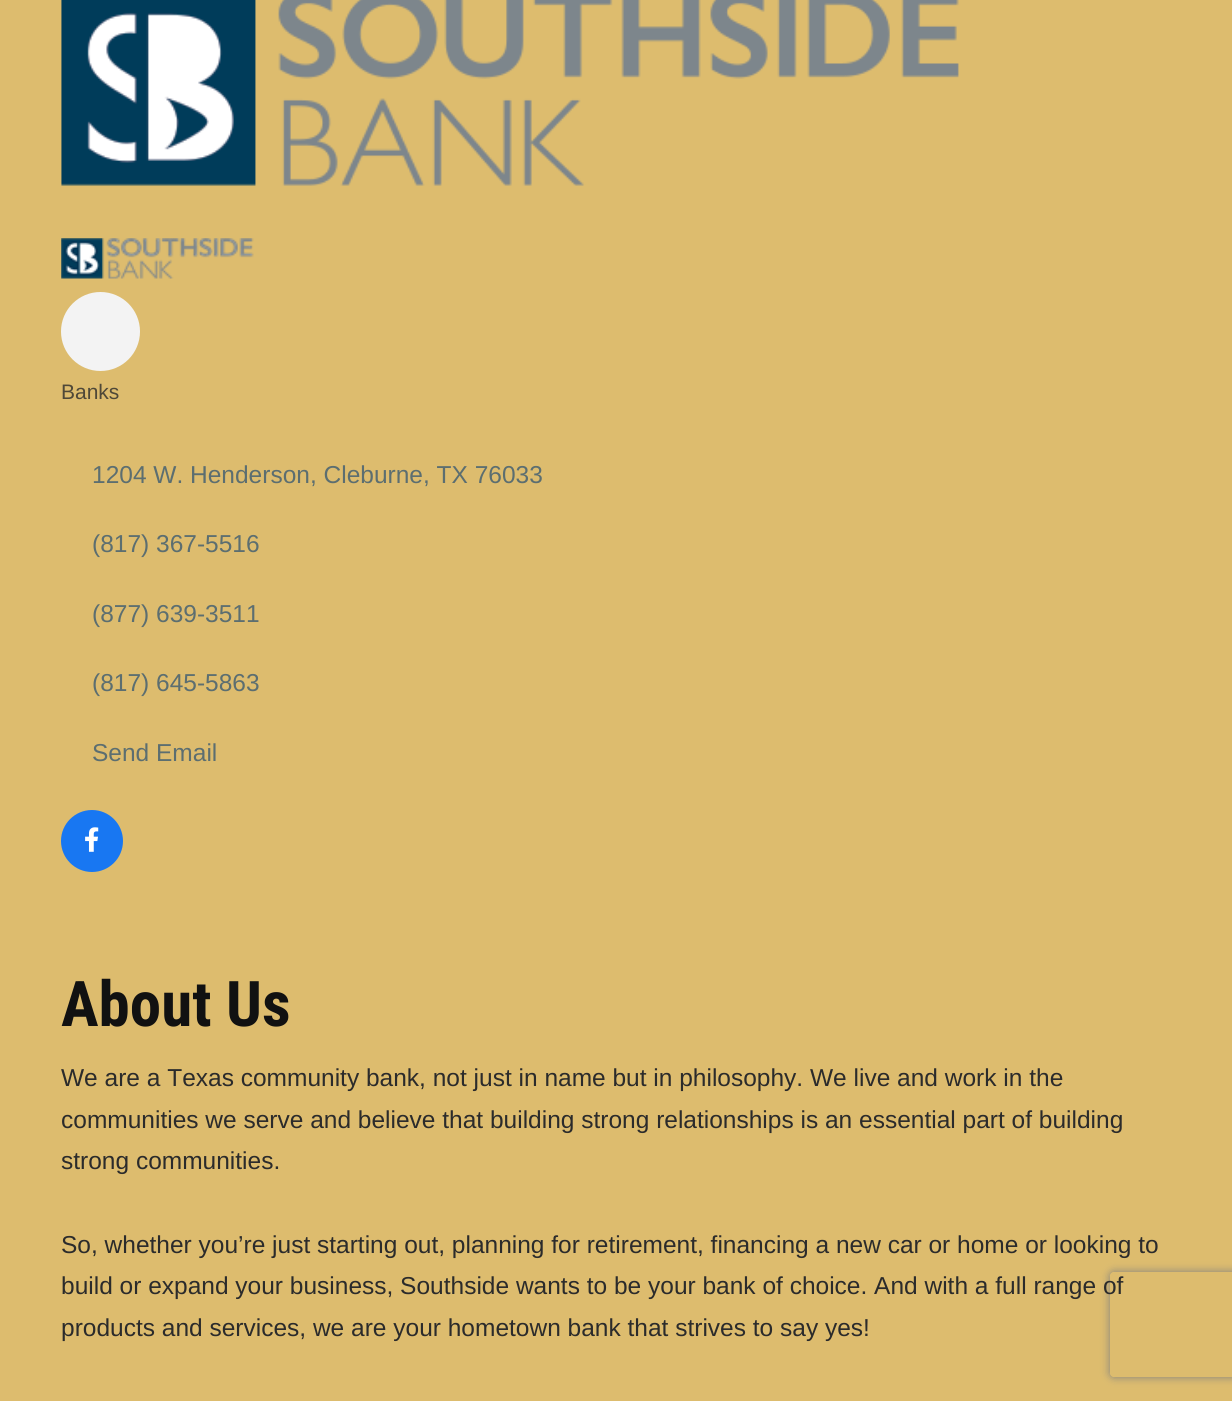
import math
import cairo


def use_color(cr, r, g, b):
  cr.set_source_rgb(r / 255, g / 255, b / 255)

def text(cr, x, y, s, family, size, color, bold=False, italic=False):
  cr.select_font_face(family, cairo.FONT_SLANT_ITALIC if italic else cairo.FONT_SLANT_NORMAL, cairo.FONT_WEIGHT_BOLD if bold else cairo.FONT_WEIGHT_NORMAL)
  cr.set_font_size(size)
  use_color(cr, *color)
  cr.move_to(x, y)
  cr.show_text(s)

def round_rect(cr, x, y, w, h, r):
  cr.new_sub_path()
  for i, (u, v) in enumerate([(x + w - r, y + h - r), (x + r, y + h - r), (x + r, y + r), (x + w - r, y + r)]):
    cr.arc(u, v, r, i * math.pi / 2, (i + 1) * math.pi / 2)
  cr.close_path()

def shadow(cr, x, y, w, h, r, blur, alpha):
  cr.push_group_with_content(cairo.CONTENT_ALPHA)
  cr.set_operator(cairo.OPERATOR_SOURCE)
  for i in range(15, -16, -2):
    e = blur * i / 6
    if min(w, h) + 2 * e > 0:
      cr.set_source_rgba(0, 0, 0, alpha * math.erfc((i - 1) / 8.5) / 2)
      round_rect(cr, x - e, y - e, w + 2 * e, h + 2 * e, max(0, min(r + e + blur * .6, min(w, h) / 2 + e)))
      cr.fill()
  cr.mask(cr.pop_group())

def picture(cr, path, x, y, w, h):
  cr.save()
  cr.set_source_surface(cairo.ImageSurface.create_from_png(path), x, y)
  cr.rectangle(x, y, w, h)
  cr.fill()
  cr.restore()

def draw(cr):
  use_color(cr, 221, 188, 110)
  cr.paint()
  picture(cr, "img_01.png", 61, 0, 898, 186)
  picture(cr, "img_02.png", 61, 238, 193, 41)
  use_color(cr, 243, 243, 243)
  cr.arc(100.5, 331.5, 39.5, 0, 2 * math.pi)
  cr.fill()
  use_color(cr, 24, 119, 242)
  cr.arc(92, 841, 31, 0, 2 * math.pi)
  cr.fill()
  picture(cr, "img_03.png", 85, 827, 14, 25)
  cr.save()
  cr.set_fill_rule(cairo.FILL_RULE_EVEN_ODD)
  cr.new_path()
  cr.move_to(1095, 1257)
  cr.line_to(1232, 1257)
  cr.line_to(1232, 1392)
  cr.line_to(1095, 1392)
  cr.close_path()
  cr.move_to(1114, 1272)
  cr.line_to(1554, 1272)
  cr.curve_to(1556, 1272, 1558, 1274, 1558, 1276)
  cr.line_to(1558, 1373)
  cr.curve_to(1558, 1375, 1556, 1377, 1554, 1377)
  cr.line_to(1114, 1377)
  cr.curve_to(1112, 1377, 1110, 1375, 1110, 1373)
  cr.line_to(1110, 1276)
  cr.curve_to(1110, 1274, 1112, 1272, 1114, 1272)
  cr.close_path()
  cr.clip()
  use_color(cr, 128, 128, 128)
  shadow(cr, 1110, 1272, 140, 105, 4, 4.5, 1)
  cr.restore()
  text(cr, 61, 399, "Banks", "Liberation Sans", 21, (79, 72, 56))
  text(cr, 92, 483, "1204 W. Henderson, Cleburne, TX 76033", "Liberation Sans", 24.5, (92, 110, 112))
  text(cr, 92, 552, "(817) 367-5516", "Liberation Sans", 24.5, (92, 110, 112))
  text(cr, 92, 622, "(877) 639-3511", "Liberation Sans", 24.5, (92, 110, 112))
  text(cr, 92, 691, "(817) 645-5863", "Liberation Sans", 24.5, (92, 110, 112))
  text(cr, 92, 761, "Send Email", "Liberation Sans", 24.5, (92, 110, 112))
  text(cr, 61, 1026, "About Us", "Roboto Condensed", 63, (17, 17, 17), bold=True)
  text(cr, 61, 1086, "We are a Texas community bank, not just in name but in philosophy. We live and work in the", "Liberation Sans", 24.5, (43, 43, 43))
  text(cr, 61, 1128, "communities we serve and believe that building strong relationships is an essential part of building", "Liberation Sans", 24.5, (43, 43, 43))
  text(cr, 61, 1169, "strong communities.", "Liberation Sans", 24.5, (43, 43, 43))
  text(cr, 61, 1253, "So, whether you’re just starting out, planning for retirement, financing a new car or home or looking to", "Liberation Sans", 24.5, (43, 43, 43))
  text(cr, 61, 1294, "build or expand your business, Southside wants to be your bank of choice. And with a full range of", "Liberation Sans", 24.5, (43, 43, 43))
  text(cr, 61, 1336, "products and services, we are your hometown bank that strives to say yes!", "Liberation Sans", 24.5, (43, 43, 43))


surface = cairo.ImageSurface(cairo.FORMAT_RGB24, 1232, 1401)
cr = cairo.Context(surface)
options = cairo.FontOptions()
options.set_hint_metrics(cairo.HINT_METRICS_OFF)
options.set_hint_style(cairo.HINT_STYLE_NONE)
cr.set_font_options(options)
cr.set_miter_limit(4)
draw(cr)
surface.write_to_png("out.png")
